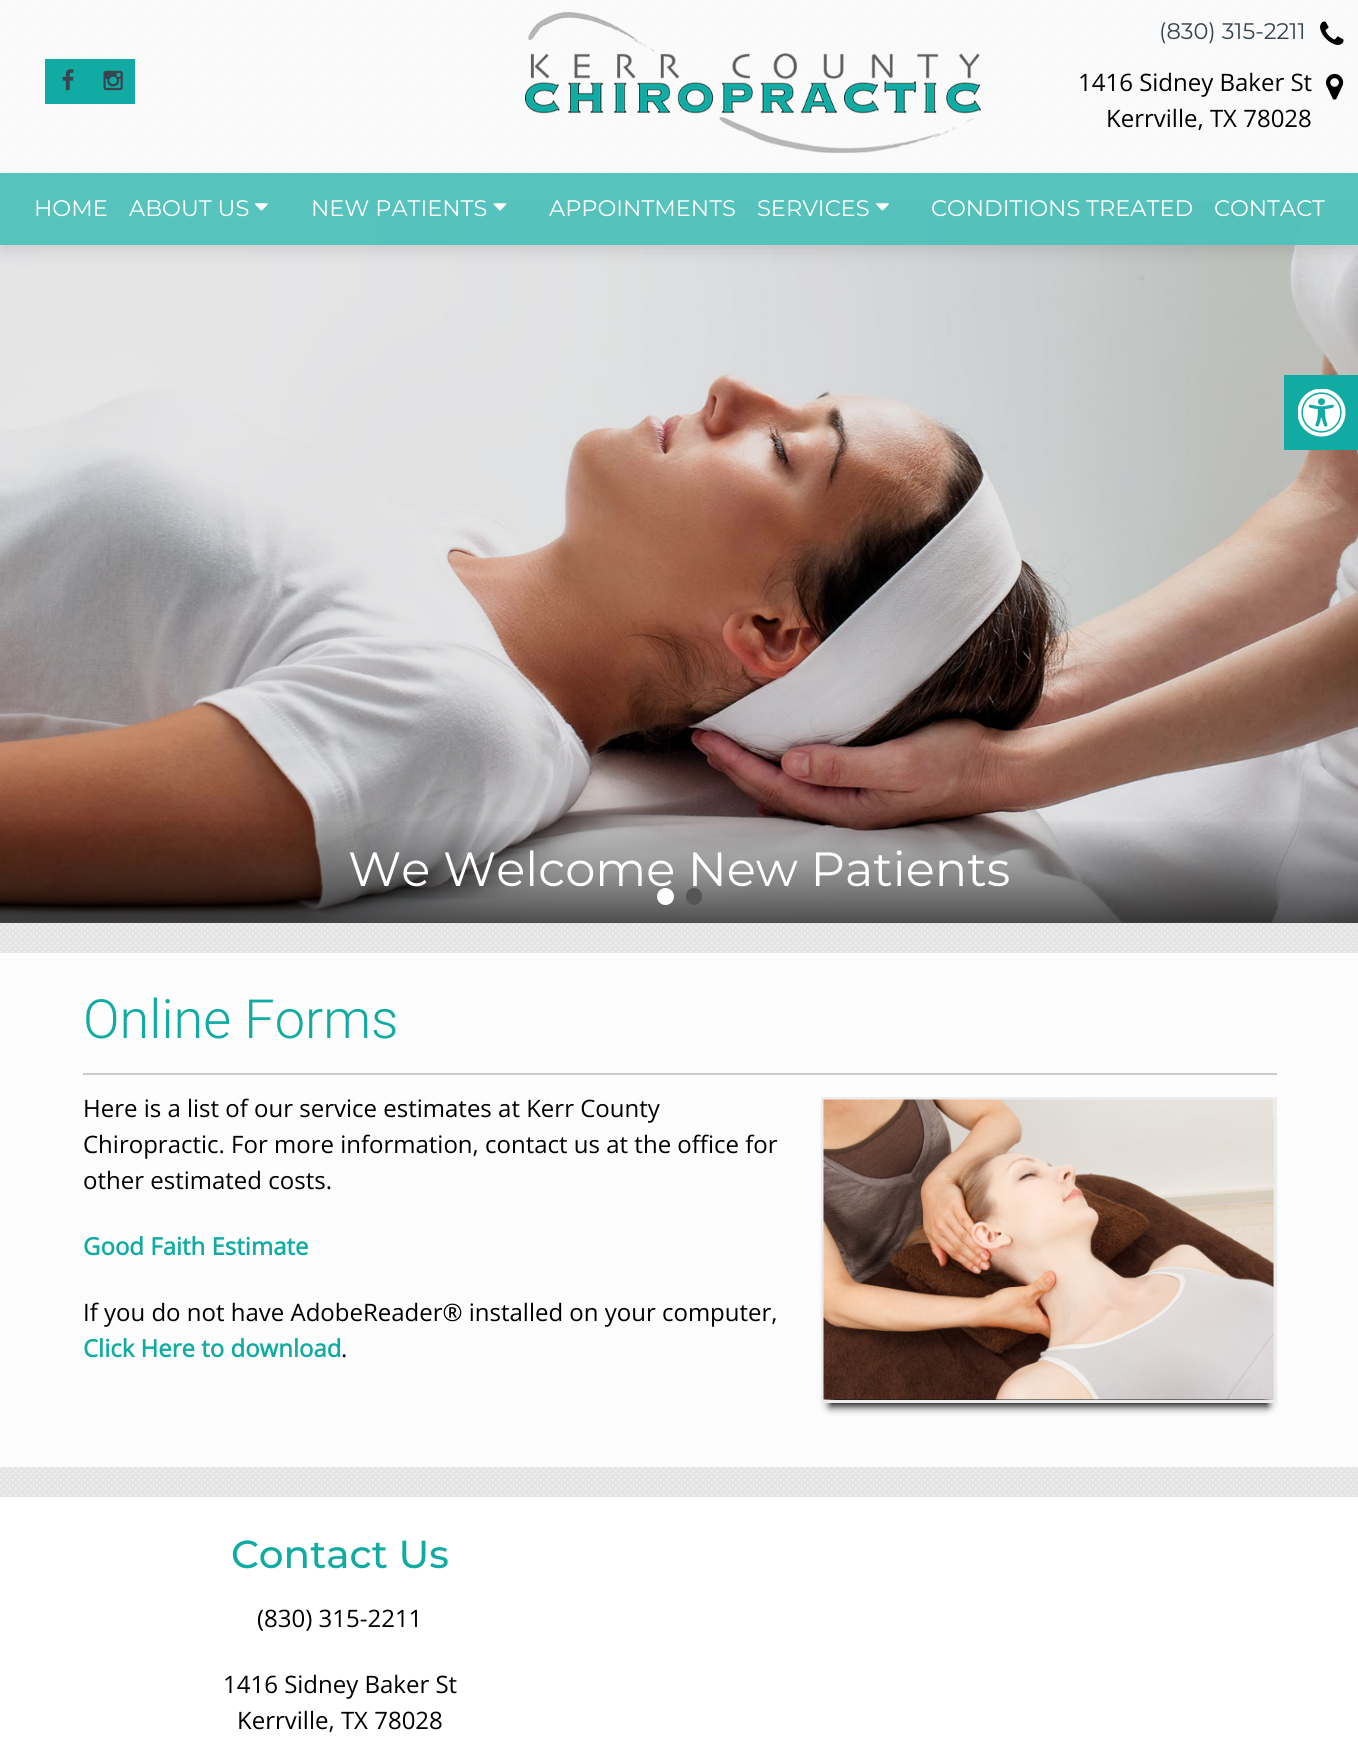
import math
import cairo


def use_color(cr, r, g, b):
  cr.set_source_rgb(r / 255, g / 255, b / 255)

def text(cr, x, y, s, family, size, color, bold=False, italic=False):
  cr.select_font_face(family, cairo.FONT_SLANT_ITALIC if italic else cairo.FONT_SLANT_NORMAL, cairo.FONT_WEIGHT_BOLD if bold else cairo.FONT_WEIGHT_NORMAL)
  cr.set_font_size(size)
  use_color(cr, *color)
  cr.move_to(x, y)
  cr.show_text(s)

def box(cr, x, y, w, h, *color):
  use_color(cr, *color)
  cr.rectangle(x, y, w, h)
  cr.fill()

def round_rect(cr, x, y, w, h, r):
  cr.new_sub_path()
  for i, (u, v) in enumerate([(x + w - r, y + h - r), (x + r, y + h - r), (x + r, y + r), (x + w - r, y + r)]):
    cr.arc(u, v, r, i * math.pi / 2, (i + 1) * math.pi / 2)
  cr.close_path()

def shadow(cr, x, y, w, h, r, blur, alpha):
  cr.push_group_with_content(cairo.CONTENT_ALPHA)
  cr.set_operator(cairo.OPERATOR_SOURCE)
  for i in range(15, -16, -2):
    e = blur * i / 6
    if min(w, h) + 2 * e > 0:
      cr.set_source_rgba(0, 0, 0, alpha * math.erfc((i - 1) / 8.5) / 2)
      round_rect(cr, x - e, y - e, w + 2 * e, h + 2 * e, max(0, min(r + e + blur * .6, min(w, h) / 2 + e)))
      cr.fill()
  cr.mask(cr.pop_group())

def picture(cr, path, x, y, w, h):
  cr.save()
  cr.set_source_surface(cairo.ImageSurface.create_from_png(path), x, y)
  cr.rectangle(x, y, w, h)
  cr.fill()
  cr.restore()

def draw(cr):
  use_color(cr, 238, 238, 238)
  cr.paint()
  picture(cr, "img_01.png", 0, 0, 1358, 1497)
  picture(cr, "img_10.png", 0, 203, 1358, 720)
  cr.set_source_rgba(0, 0, 0, 0.1)
  cr.rectangle(0, 203, 1358, 720)
  cr.fill()
  cr.save()
  cr.set_fill_rule(cairo.FILL_RULE_EVEN_ODD)
  cr.new_path()
  cr.move_to(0, 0)
  cr.line_to(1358, 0)
  cr.line_to(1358, 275)
  cr.line_to(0, 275)
  cr.close_path()
  cr.move_to(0, 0)
  cr.line_to(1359, 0)
  cr.line_to(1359, 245)
  cr.line_to(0, 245)
  cr.close_path()
  cr.clip()
  use_color(cr, 0, 0, 0)
  shadow(cr, 0, 6, 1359, 245, 0, 7.5, 0.1)
  cr.restore()
  cr.set_source_rgba(1, 1, 1, 0.8)
  cr.rectangle(0, 0, 1358, 245)
  cr.fill()
  box(cr, 45, 59, 90, 45, 17, 171, 163)
  picture(cr, "img_02.png", 62, 69, 12, 22)
  picture(cr, "img_03.png", 103, 70, 20, 21)
  picture(cr, "img_04.png", 525, 12, 456, 141)
  picture(cr, "img_05.png", 1320, 21, 24, 24)
  picture(cr, "img_06.png", 1326, 73, 18, 27)
  cr.set_source_rgba(0.067, 0.671, 0.639, 0.7)
  cr.rectangle(0, 173, 1358, 72)
  cr.fill()
  picture(cr, "img_07.png", 255, 203, 13, 8)
  picture(cr, "img_08.png", 493, 203, 14, 8)
  picture(cr, "img_09.png", 876, 203, 13, 8)
  gradient = cairo.LinearGradient(680, 818, 680, 923)
  gradient.add_color_stop_rgba(0, 0, 0, 0, 0)
  gradient.add_color_stop_rgba(1, 0, 0, 0, 0.65)
  cr.set_source(gradient)
  cr.rectangle(0, 821, 1358, 102)
  cr.fill()
  use_color(cr, 255, 255, 255)
  cr.arc(665.5, 896.5, 8.5, 0, 2 * math.pi)
  cr.fill()
  use_color(cr, 85, 85, 85)
  round_rect(cr, 686, 888, 16, 17, 8)
  cr.fill()
  cr.set_source_rgba(1, 1, 1, 0.9)
  cr.rectangle(0, 953, 1358, 514)
  cr.fill()
  box(cr, 83, 1073, 1194, 2, 204, 204, 204)
  use_color(cr, 0, 0, 0)
  shadow(cr, 830, 1118, 438, 288, 0, 4.5, 1)
  cr.rectangle(822.5, 1098.5, 453, 303)
  use_color(cr, 236, 236, 236)
  cr.set_line_width(3)
  cr.stroke()
  picture(cr, "img_11.png", 823, 1099, 451, 301)
  box(cr, 0, 1497, 1358, 249, 255, 255, 255)
  box(cr, 1284, 375, 74, 75, 17, 171, 163)
  picture(cr, "img_12.png", 1298, 389, 48, 48)
  text(cr, 1159, 39, "(830) 315-2211", "Montserrat", 22.5, (54, 69, 79))
  text(cr, 1078, 91, "1416 Sidney Baker St", "Open Sans", 24, (0, 0, 0))
  text(cr, 1106, 127, "Kerrville, TX 78028", "Open Sans", 24, (0, 0, 0))
  text(cr, 34, 216, "HOME", "Montserrat", 22.5, (255, 255, 255))
  text(cr, 129, 216, "ABOUT US", "Montserrat", 22.5, (255, 255, 255))
  text(cr, 311, 216, "NEW PATIENTS", "Montserrat", 22.5, (255, 255, 255))
  text(cr, 549, 216, "APPOINTMENTS", "Montserrat", 22.5, (255, 255, 255))
  text(cr, 757, 216, "SERVICES", "Montserrat", 22.5, (255, 255, 255))
  text(cr, 931, 216, "CONDITIONS TREATED", "Montserrat", 22.5, (255, 255, 255))
  text(cr, 1214, 216, "CONTACT", "Montserrat", 22.5, (255, 255, 255))
  text(cr, 348, 886, "We Welcome New Patients", "Montserrat", 48, (255, 255, 255))
  text(cr, 83, 1038, "Online Forms", "Roboto Light", 54, (17, 171, 163))
  text(cr, 83, 1117, "Here is a list of our service estimates at Kerr County", "Open Sans", 24, (0, 0, 0))
  text(cr, 83, 1153, "Chiropractic. For more information, contact us at the office for", "Open Sans", 24, (0, 0, 0))
  text(cr, 83, 1189, "other estimated costs.", "Open Sans", 24, (0, 0, 0))
  text(cr, 83, 1255, "Good Faith Estimate", "Open Sans", 24, (17, 171, 163), bold=True)
  text(cr, 83, 1321, "If you do not have AdobeReader® installed on your computer,", "Open Sans", 24, (0, 0, 0))
  text(cr, 83, 1357, "Click Here to download", "Open Sans", 24, (17, 171, 163), bold=True)
  text(cr, 341, 1357, ".", "Open Sans", 24, (0, 0, 0))
  text(cr, 231, 1568, "Contact Us", "Montserrat Medium", 39, (17, 171, 163))
  text(cr, 257, 1627, "(830) 315-2211", "Open Sans", 24, (0, 0, 0))
  text(cr, 223, 1693, "1416 Sidney Baker St", "Open Sans", 24, (0, 0, 0))
  text(cr, 237, 1729, "Kerrville, TX 78028", "Open Sans", 24, (0, 0, 0))


surface = cairo.ImageSurface(cairo.FORMAT_RGB24, 1358, 1746)
cr = cairo.Context(surface)
options = cairo.FontOptions()
options.set_hint_metrics(cairo.HINT_METRICS_OFF)
options.set_hint_style(cairo.HINT_STYLE_NONE)
cr.set_font_options(options)
cr.set_miter_limit(4)
draw(cr)
surface.write_to_png("out.png")
